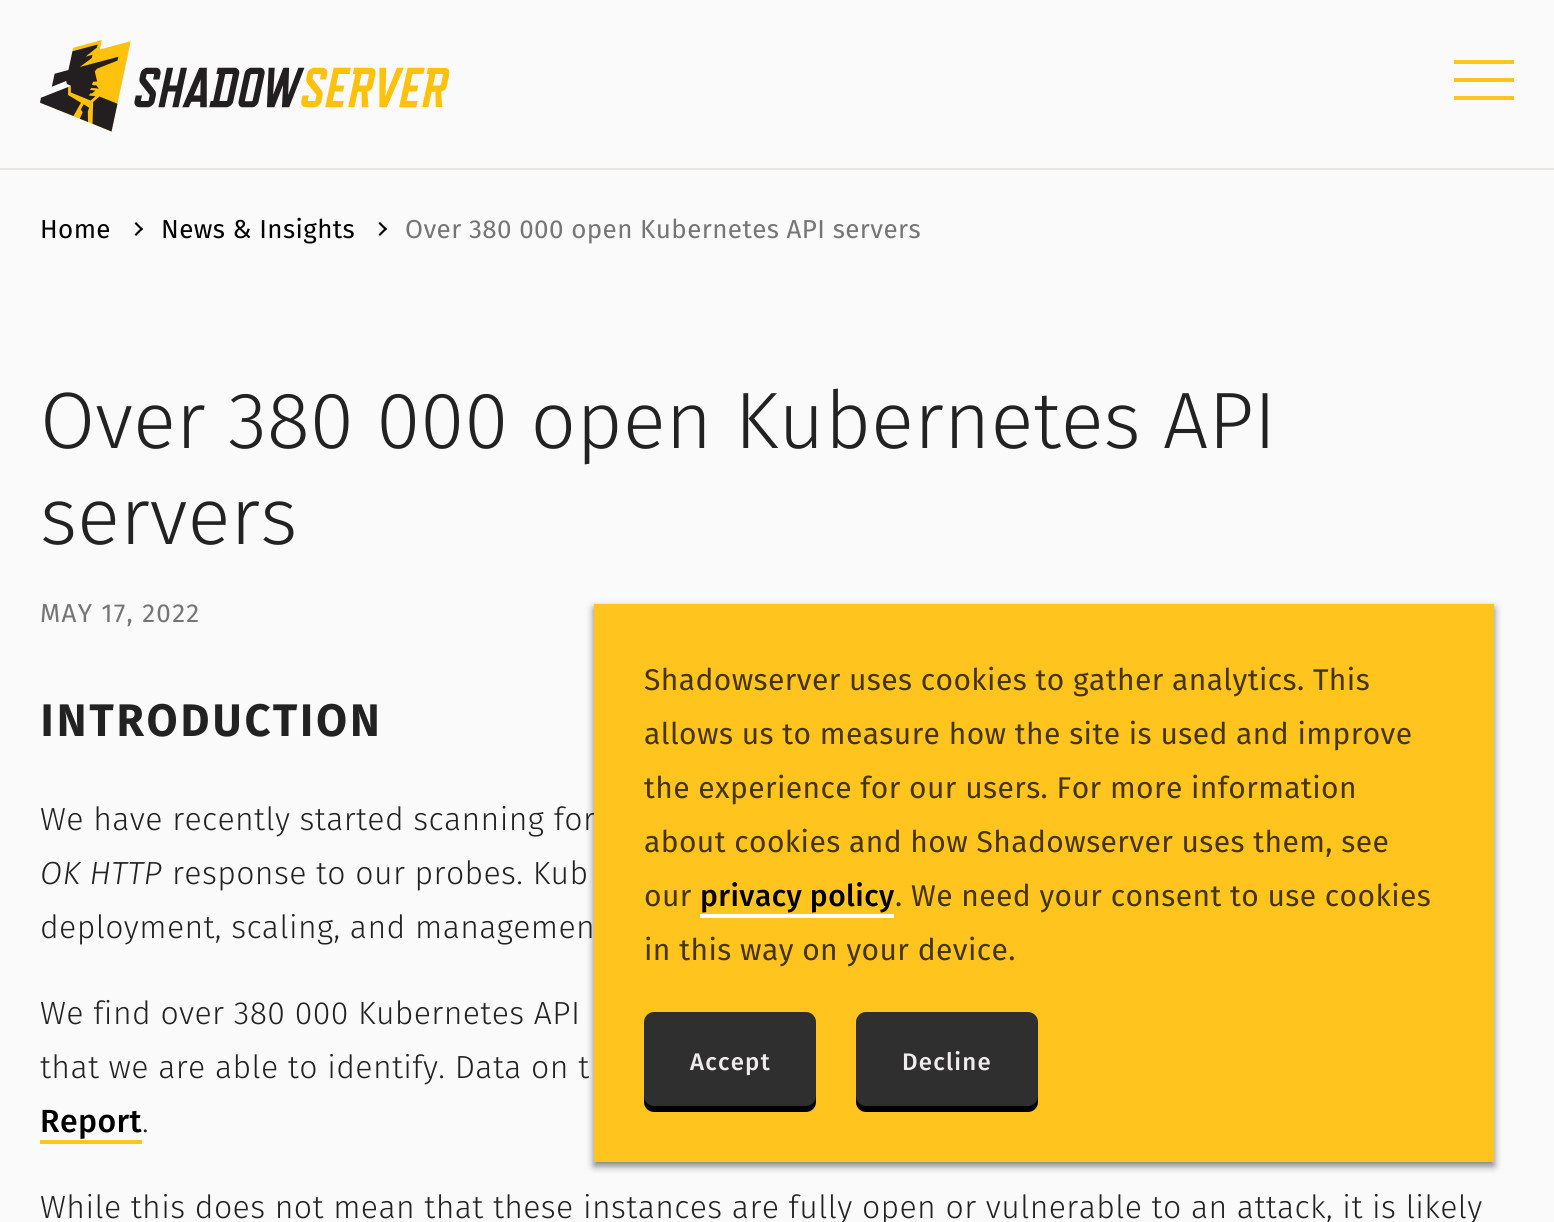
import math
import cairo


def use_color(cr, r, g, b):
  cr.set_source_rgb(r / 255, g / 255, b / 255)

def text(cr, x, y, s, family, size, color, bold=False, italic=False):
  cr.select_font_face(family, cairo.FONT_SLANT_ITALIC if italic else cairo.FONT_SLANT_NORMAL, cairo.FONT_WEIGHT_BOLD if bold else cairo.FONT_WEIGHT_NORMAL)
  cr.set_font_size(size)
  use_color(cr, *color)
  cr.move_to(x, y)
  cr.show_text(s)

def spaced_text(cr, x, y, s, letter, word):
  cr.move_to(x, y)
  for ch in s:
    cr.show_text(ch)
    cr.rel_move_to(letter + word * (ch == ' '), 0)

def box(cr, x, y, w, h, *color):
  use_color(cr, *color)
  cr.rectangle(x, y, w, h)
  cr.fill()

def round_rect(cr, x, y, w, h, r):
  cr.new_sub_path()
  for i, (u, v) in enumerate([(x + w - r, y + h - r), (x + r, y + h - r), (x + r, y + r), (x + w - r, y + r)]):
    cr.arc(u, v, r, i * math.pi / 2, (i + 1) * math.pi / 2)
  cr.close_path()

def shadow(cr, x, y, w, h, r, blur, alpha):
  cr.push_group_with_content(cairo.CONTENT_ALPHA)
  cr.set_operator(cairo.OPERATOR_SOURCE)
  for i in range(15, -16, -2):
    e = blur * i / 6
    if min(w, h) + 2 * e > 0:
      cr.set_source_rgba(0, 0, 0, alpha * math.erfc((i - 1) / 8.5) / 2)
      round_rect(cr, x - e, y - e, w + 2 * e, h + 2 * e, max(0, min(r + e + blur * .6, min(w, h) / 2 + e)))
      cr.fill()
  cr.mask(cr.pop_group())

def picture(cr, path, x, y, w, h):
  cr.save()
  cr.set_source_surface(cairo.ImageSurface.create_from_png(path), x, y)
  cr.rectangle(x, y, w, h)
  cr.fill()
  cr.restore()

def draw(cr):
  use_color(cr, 250, 250, 250)
  cr.paint()
  box(cr, 0, 168, 1554, 2, 234, 229, 229)
  picture(cr, "img_01.png", 40, 40, 410, 92)
  box(cr, 1454, 60, 60, 4, 255, 196, 30)
  box(cr, 1454, 78, 60, 4, 255, 196, 30)
  box(cr, 1454, 96, 60, 4, 255, 196, 30)
  use_color(cr, 0, 0, 0)
  cr.new_path()
  cr.move_to(136, 222)
  cr.line_to(143, 229)
  cr.line_to(141.5, 230.5)
  cr.line_to(134.5, 223.5)
  cr.close_path()
  cr.fill()
  cr.new_path()
  cr.move_to(141.5, 227.5)
  cr.line_to(143, 229)
  cr.line_to(136, 236)
  cr.line_to(134.5, 234.5)
  cr.close_path()
  cr.fill()
  cr.new_path()
  cr.move_to(380, 222)
  cr.line_to(387, 229)
  cr.line_to(385.5, 230.5)
  cr.line_to(378.5, 223.5)
  cr.close_path()
  cr.fill()
  cr.new_path()
  cr.move_to(385.5, 227.5)
  cr.line_to(387, 229)
  cr.line_to(380, 236)
  cr.line_to(378.5, 234.5)
  cr.close_path()
  cr.fill()
  box(cr, 40, 1140, 102, 4, 255, 196, 30)
  use_color(cr, 0, 0, 0)
  shadow(cr, 594, 608, 900, 558, 0, 4, 0.5)
  cr.select_font_face("Fira Sans")
  cr.set_font_size(26)
  use_color(cr, 0, 0, 0)
  spaced_text(cr, 40, 238, "Home", 0.4, 0)
  spaced_text(cr, 161, 238, "News & Insights", 0.4, 0)
  use_color(cr, 117, 117, 117)
  spaced_text(cr, 405, 238, "Over 380 000 open Kubernetes API servers", 0.4, 0)
  text(cr, 40, 448, "Over 380 000 open Kubernetes API", "Fira Sans Light", 80, (34, 34, 35))
  text(cr, 40, 544, "servers", "Fira Sans Light", 80, (34, 34, 35))
  cr.select_font_face("Fira Sans")
  cr.set_font_size(26)
  use_color(cr, 117, 117, 117)
  spaced_text(cr, 40, 622, "MAY 17, 2022", 1.25, 0)
  cr.select_font_face("Fira Sans", cairo.FONT_SLANT_NORMAL, cairo.FONT_WEIGHT_BOLD)
  cr.set_font_size(44)
  use_color(cr, 34, 34, 35)
  spaced_text(cr, 40, 736, "INTRODUCTION", 3.4, 0)
  cr.select_font_face("Fira Sans Light")
  cr.set_font_size(32)
  spaced_text(cr, 40, 830, "We have recently started scanning for", 0.4, 0)
  cr.select_font_face("Fira Sans Light", cairo.FONT_SLANT_ITALIC)
  spaced_text(cr, 40, 884, "OK HTTP", 0.4, 0)
  cr.select_font_face("Fira Sans Light")
  spaced_text(cr, 172, 884, "response to our probes. Kub", 0.4, 0)
  spaced_text(cr, 40, 938, "deployment, scaling, and managemen", 0.4, 0)
  spaced_text(cr, 40, 1024, "We find over 380 000 Kubernetes API", 0.4, 0)
  spaced_text(cr, 40, 1078, "that we are able to identify. Data on t", 0.4, 0)
  cr.select_font_face("Fira Sans Medium")
  use_color(cr, 0, 0, 0)
  spaced_text(cr, 40, 1132, "Report", 0.4, 0)
  cr.select_font_face("Fira Sans Light")
  use_color(cr, 34, 34, 35)
  spaced_text(cr, 142, 1132, ".", 0.4, 0)
  spaced_text(cr, 40, 1218, "While this does not mean that these instances are fully open or vulnerable to an attack, it is likely", 0.4, 0)
  box(cr, 594, 604, 900, 558, 255, 196, 30)
  cr.select_font_face("Fira Sans")
  cr.set_font_size(30)
  use_color(cr, 69, 52, 4)
  spaced_text(cr, 644, 690, "Shadowserver uses cookies to gather analytics. This", 0.4, 0)
  spaced_text(cr, 644, 744, "allows us to measure how the site is used and improve", 0.4, 0)
  spaced_text(cr, 644, 798, "the experience for our users. For more information", 0.4, 0)
  spaced_text(cr, 644, 852, "about cookies and how Shadowserver uses them, see", 0.4, 0)
  spaced_text(cr, 644, 906, "our", 0.4, 0)
  cr.select_font_face("Fira Sans Medium")
  use_color(cr, 0, 0, 0)
  spaced_text(cr, 700, 906, "privacy policy", 0.4, 0)
  box(cr, 700, 914, 194, 4, 255, 255, 255)
  cr.select_font_face("Fira Sans")
  use_color(cr, 69, 52, 4)
  spaced_text(cr, 895, 906, ". We need your consent to use cookies", 0.4, 0)
  spaced_text(cr, 644, 960, "in this way on your device.", 0.4, 0)
  use_color(cr, 0, 0, 0)
  round_rect(cr, 644, 1018, 172, 94, 10)
  cr.fill()
  use_color(cr, 47, 47, 47)
  round_rect(cr, 644, 1012, 172, 94, 10)
  cr.fill()
  cr.select_font_face("Fira Sans Medium")
  cr.set_font_size(24)
  use_color(cr, 239, 237, 237)
  spaced_text(cr, 690, 1070, "Accept", 1.25, 0)
  use_color(cr, 0, 0, 0)
  round_rect(cr, 856, 1018, 182, 94, 10)
  cr.fill()
  use_color(cr, 47, 47, 47)
  round_rect(cr, 856, 1012, 182, 94, 10)
  cr.fill()
  use_color(cr, 239, 237, 237)
  spaced_text(cr, 902, 1070, "Decline", 1.25, 0)


surface = cairo.ImageSurface(cairo.FORMAT_RGB24, 1554, 1222)
cr = cairo.Context(surface)
options = cairo.FontOptions()
options.set_hint_metrics(cairo.HINT_METRICS_OFF)
options.set_hint_style(cairo.HINT_STYLE_NONE)
cr.set_font_options(options)
cr.set_miter_limit(4)
draw(cr)
surface.write_to_png("out.png")
